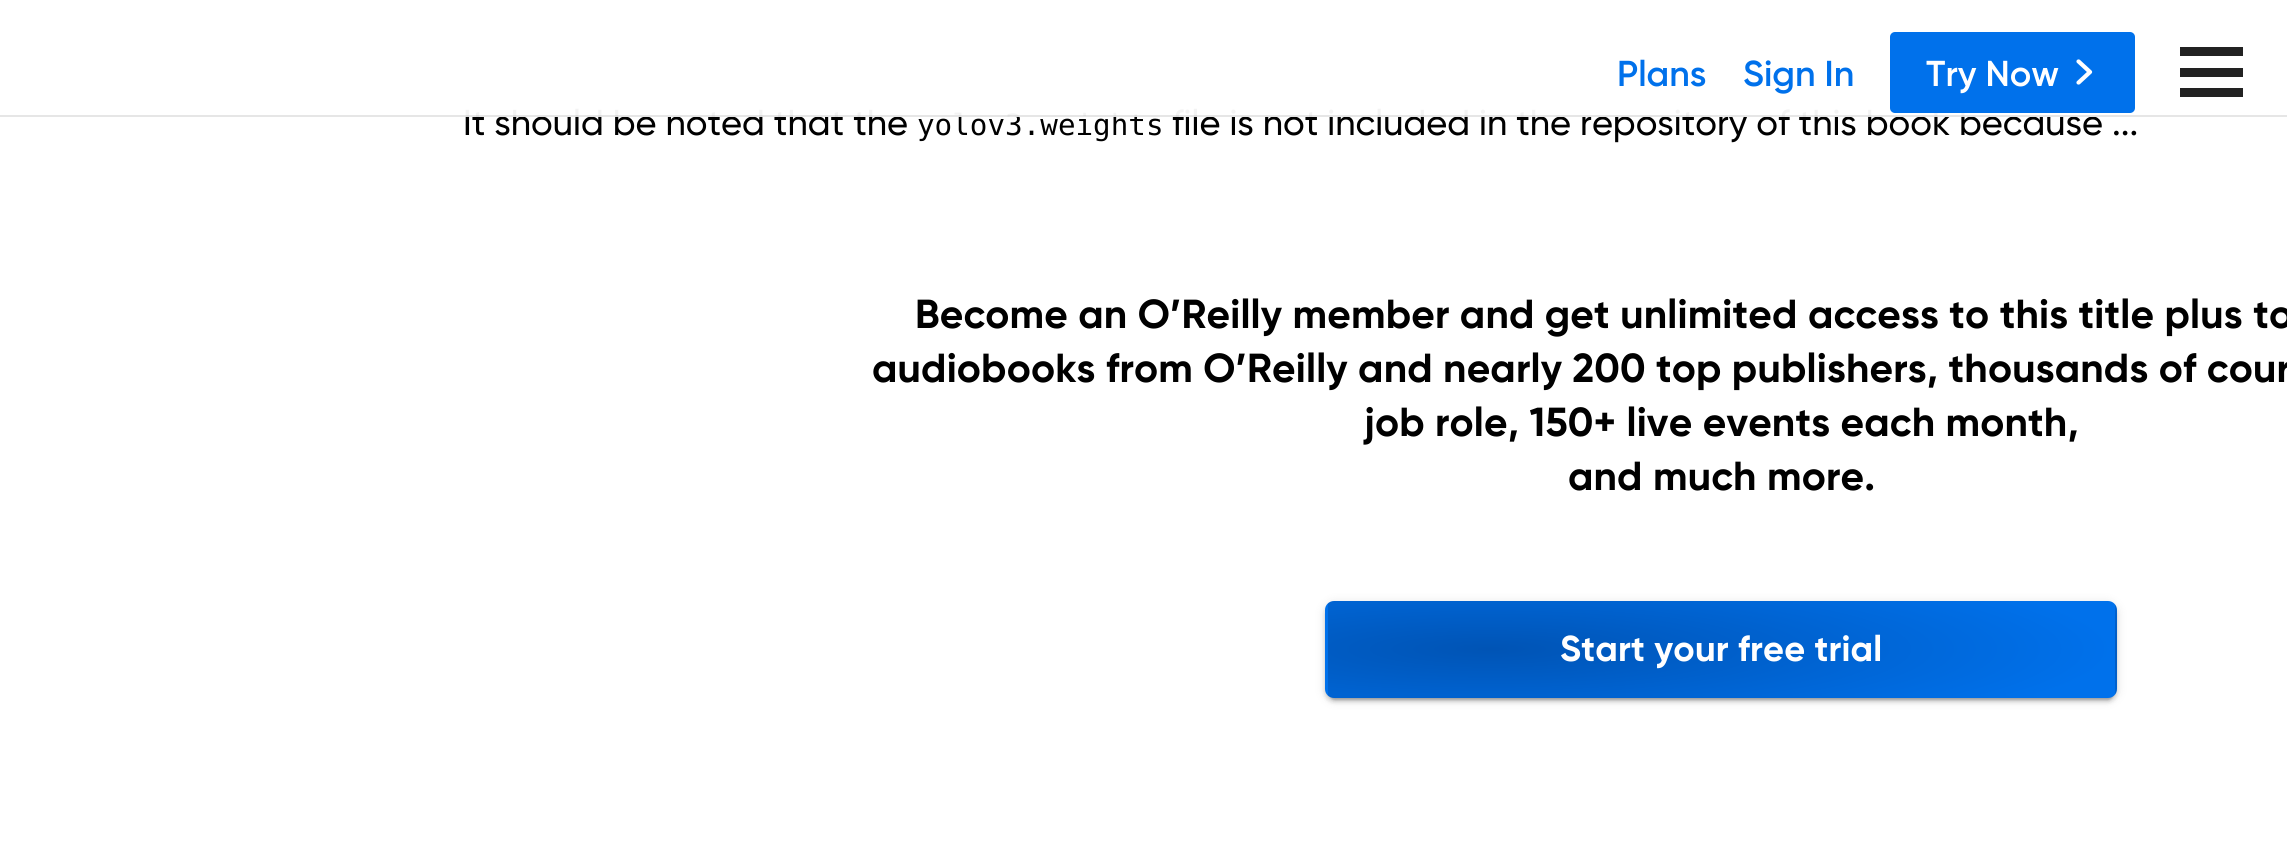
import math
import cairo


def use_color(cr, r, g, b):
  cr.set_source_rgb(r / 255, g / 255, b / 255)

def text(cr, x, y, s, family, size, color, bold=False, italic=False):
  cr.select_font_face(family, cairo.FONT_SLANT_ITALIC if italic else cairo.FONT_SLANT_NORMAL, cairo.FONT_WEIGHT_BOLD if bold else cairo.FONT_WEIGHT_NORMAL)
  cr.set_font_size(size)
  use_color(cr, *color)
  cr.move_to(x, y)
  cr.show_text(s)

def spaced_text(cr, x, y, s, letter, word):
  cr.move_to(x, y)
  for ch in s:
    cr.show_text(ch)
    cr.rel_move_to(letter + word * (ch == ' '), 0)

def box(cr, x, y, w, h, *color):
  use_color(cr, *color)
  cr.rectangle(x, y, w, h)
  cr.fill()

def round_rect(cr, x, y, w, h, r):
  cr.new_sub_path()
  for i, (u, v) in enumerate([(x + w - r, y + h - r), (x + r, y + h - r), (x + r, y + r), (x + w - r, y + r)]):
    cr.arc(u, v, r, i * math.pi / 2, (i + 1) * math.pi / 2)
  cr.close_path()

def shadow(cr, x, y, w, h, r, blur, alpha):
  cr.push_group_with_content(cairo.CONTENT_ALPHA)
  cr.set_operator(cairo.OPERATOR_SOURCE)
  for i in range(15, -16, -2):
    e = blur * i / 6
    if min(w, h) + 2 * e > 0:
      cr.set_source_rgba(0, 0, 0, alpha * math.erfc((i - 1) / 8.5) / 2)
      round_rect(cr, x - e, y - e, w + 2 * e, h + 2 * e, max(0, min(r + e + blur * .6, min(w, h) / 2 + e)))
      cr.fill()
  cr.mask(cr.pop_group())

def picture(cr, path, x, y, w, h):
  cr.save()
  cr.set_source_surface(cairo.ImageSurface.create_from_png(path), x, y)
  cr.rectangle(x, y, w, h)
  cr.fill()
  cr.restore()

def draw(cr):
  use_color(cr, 255, 255, 255)
  cr.paint()
  box(cr, 2180, 68, 63, 9, 34, 34, 34)
  box(cr, 2180, 47, 63, 9, 34, 34, 34)
  box(cr, 2180, 88, 63, 9, 34, 34, 34)
  use_color(cr, 0, 0, 0)
  shadow(cr, 1325, 603, 792, 97, 9, 5.5, 0.12)
  shadow(cr, 1325, 605, 792, 97, 9, 2, 0.14)
  shadow(cr, 1330, 612, 783, 88, 5, 1, 0.2)
  cr.save()
  round_rect(cr, 1325, 601, 792, 97, 9)
  cr.clip()
  gradient = cairo.RadialGradient(0, 0, 0, 0, 0, 1)
  gradient.set_matrix(cairo.Matrix(1 / 625, 0, 0, 1 / 97, -1 * 1490 / 625, -1 * 557 / 97))
  gradient.add_color_stop_rgba(0, 0, 0.329, 0.71, 1)
  gradient.add_color_stop_rgba(1, 0, 0.443, 0.922, 1)
  cr.set_source(gradient)
  cr.rectangle(1328, 601, 787, 2)
  cr.fill()
  gradient = cairo.RadialGradient(0, 0, 0, 0, 0, 1)
  gradient.set_matrix(cairo.Matrix(1 / 625, 0, 0, 1 / 97, -1 * 702 / 625, -1 * 649 / 97))
  gradient.add_color_stop_rgba(0, 0, 0.329, 0.71, 1)
  gradient.add_color_stop_rgba(1, 0, 0.443, 0.922, 1)
  cr.set_source(gradient)
  cr.rectangle(1325, 603, 3, 92)
  cr.fill()
  gradient = cairo.RadialGradient(0, 0, 0, 0, 0, 1)
  gradient.set_matrix(cairo.Matrix(1 / 625, 0, 0, 1 / 97, -1 * 1490 / 625, -1 * 649 / 97))
  gradient.add_color_stop_rgba(0, 0, 0.329, 0.71, 1)
  gradient.add_color_stop_rgba(1, 0, 0.443, 0.922, 1)
  cr.set_source(gradient)
  cr.rectangle(1328, 603, 787, 92)
  cr.fill()
  gradient = cairo.RadialGradient(0, 0, 0, 0, 0, 1)
  gradient.set_matrix(cairo.Matrix(1 / 625, 0, 0, 1 / 97, -1 * 2277 / 625, -1 * 649 / 97))
  gradient.add_color_stop_rgba(0, 0, 0.329, 0.71, 1)
  gradient.add_color_stop_rgba(1, 0, 0.443, 0.922, 1)
  cr.set_source(gradient)
  cr.rectangle(2115, 603, 2, 92)
  cr.fill()
  gradient = cairo.RadialGradient(0, 0, 0, 0, 0, 1)
  gradient.set_matrix(cairo.Matrix(1 / 625, 0, 0, 1 / 97, -1 * 702 / 625, -1 * 741 / 97))
  gradient.add_color_stop_rgba(0, 0, 0.329, 0.71, 1)
  gradient.add_color_stop_rgba(1, 0, 0.443, 0.922, 1)
  cr.set_source(gradient)
  cr.rectangle(1325, 695, 3, 1)
  cr.fill()
  gradient = cairo.RadialGradient(0, 0, 0, 0, 0, 1)
  gradient.set_matrix(cairo.Matrix(1 / 625, 0, 0, 1 / 97, -1 * 1490 / 625, -1 * 741 / 97))
  gradient.add_color_stop_rgba(0, 0, 0.329, 0.71, 1)
  gradient.add_color_stop_rgba(1, 0, 0.443, 0.922, 1)
  cr.set_source(gradient)
  cr.rectangle(1328, 695, 787, 3)
  cr.fill()
  cr.restore()
  text(cr, 1617, 86, "Plans", "Gilroy SemiBold", 36, (0, 113, 235))
  text(cr, 1743, 86, "Sign In", "Gilroy SemiBold", 36, (0, 113, 235))
  text(cr, 463, 135, "It should be noted that the", "Gilroy Medium", 36, (0, 0, 0))
  text(cr, 917, 135, "yolov3.weights", "DejaVu Sans Mono", 29.25, (0, 0, 0))
  text(cr, 1172, 135, "file is not included in the repository of this book because ...", "Gilroy Medium", 36, (0, 0, 0))
  cr.set_source_rgba(1, 1, 1, 0.95)
  cr.rectangle(465, 108, 1631, 9)
  cr.fill()
  use_color(cr, 0, 113, 235)
  round_rect(cr, 1890, 32, 245, 81, 5)
  cr.fill()
  picture(cr, "img_01.png", 2076, 59, 17, 26)
  text(cr, 1926, 86, "Try Now", "Gilroy SemiBold", 36, (255, 255, 255))
  cr.set_source_rgba(0, 0, 0, 0.1)
  cr.rectangle(0, 115, 2287, 2)
  cr.fill()
  cr.select_font_face("Gilroy", cairo.FONT_SLANT_NORMAL, cairo.FONT_WEIGHT_BOLD)
  cr.set_font_size(40.5)
  use_color(cr, 0, 0, 0)
  spaced_text(cr, 915, 328, "Become an O’Reilly member and get unlimited access to this title plus to", 0.2, 0)
  spaced_text(cr, 872, 382, "audiobooks from O’Reilly and nearly 200 top publishers, thousands of cour", 0.2, 0)
  spaced_text(cr, 1364, 436, "job role, 150+ live events each month,", 0.2, 0)
  spaced_text(cr, 1568, 490, "and much more.", 0.2, 0)
  cr.set_font_size(36)
  use_color(cr, 255, 255, 255)
  spaced_text(cr, 1560, 661, "Start your free trial", 0.2, 0)


surface = cairo.ImageSurface(cairo.FORMAT_RGB24, 2287, 848)
cr = cairo.Context(surface)
options = cairo.FontOptions()
options.set_hint_metrics(cairo.HINT_METRICS_OFF)
options.set_hint_style(cairo.HINT_STYLE_NONE)
cr.set_font_options(options)
cr.set_miter_limit(4)
draw(cr)
surface.write_to_png("out.png")
